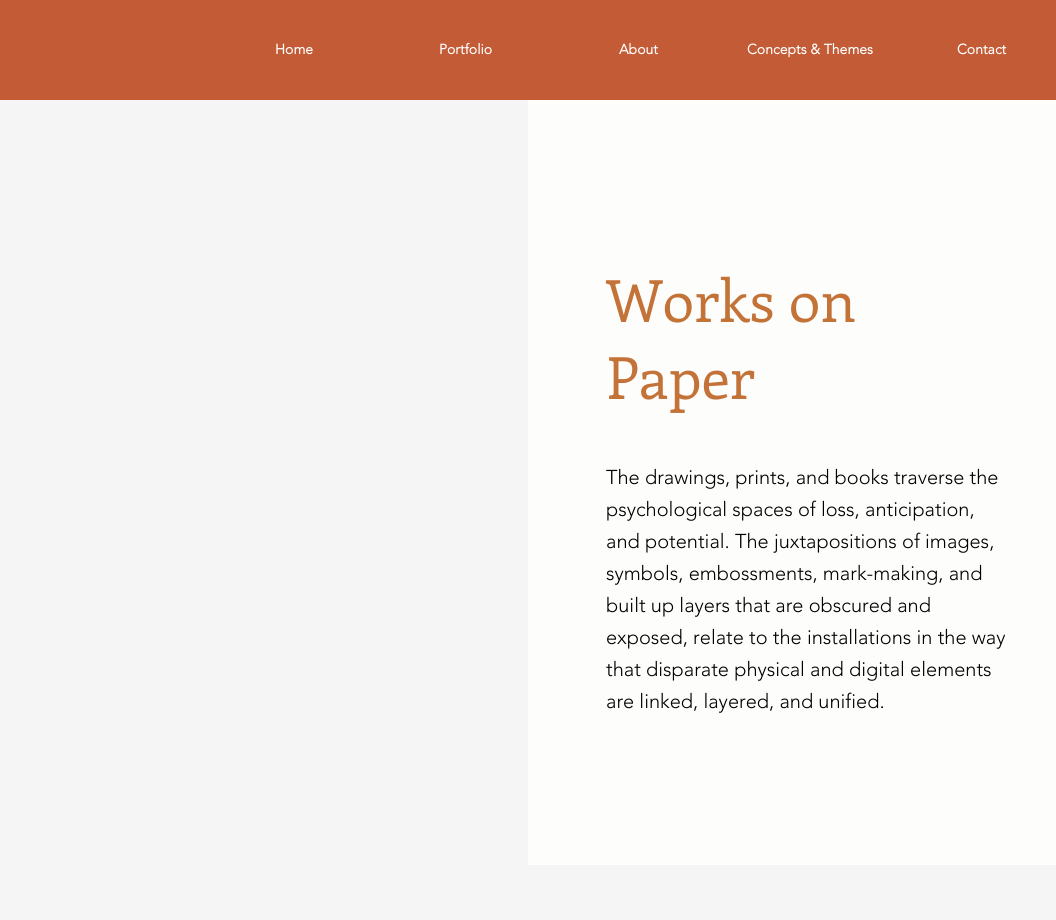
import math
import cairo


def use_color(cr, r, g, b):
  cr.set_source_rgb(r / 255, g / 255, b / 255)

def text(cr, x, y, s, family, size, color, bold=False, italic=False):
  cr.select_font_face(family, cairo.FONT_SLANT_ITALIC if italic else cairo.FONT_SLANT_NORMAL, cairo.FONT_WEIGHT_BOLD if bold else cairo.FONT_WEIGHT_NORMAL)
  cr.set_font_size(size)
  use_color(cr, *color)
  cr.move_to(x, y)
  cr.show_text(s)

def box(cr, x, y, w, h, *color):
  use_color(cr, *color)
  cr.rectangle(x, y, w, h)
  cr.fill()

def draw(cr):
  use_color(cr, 245, 245, 245)
  cr.paint()
  box(cr, 0, 0, 1056, 100, 194, 91, 54)
  box(cr, 528, 100, 528, 765, 253, 253, 252)
  text(cr, 275, 54, "Home", "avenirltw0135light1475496", 14, (255, 255, 255), bold=True)
  text(cr, 439, 54, "Portfolio", "avenirltw0135light1475496", 14, (255, 255, 255), bold=True)
  text(cr, 619, 54, "About", "avenirltw0135light1475496", 14, (255, 255, 255), bold=True)
  text(cr, 747, 54, "Concepts & Themes", "avenirltw0135light1475496", 14, (255, 255, 255), bold=True)
  text(cr, 957, 54, "Contact", "avenirltw0135light1475496", 14, (255, 255, 255), bold=True)
  text(cr, 606, 322, "Works on", "Enriqueta", 58, (195, 114, 56))
  text(cr, 606, 399, "Paper", "Enriqueta", 58, (195, 114, 56))
  text(cr, 606, 484, "The drawings, prints, and books traverse the", "avenirltw0135light1475496 Light", 20, (0, 0, 0))
  text(cr, 606, 516, "psychological spaces of loss, anticipation,", "avenirltw0135light1475496 Light", 20, (0, 0, 0))
  text(cr, 606, 548, "and potential. The juxtapositions of images,", "avenirltw0135light1475496 Light", 20, (0, 0, 0))
  text(cr, 606, 580, "symbols, embossments, mark-making, and", "avenirltw0135light1475496 Light", 20, (0, 0, 0))
  text(cr, 606, 612, "built up layers that are obscured and", "avenirltw0135light1475496 Light", 20, (0, 0, 0))
  text(cr, 606, 644, "exposed, relate to the installations in the way", "avenirltw0135light1475496 Light", 20, (0, 0, 0))
  text(cr, 606, 676, "that disparate physical and digital elements", "avenirltw0135light1475496 Light", 20, (0, 0, 0))
  text(cr, 606, 708, "are linked, layered, and unified.", "avenirltw0135light1475496 Light", 20, (0, 0, 0))


surface = cairo.ImageSurface(cairo.FORMAT_RGB24, 1056, 920)
cr = cairo.Context(surface)
options = cairo.FontOptions()
options.set_hint_metrics(cairo.HINT_METRICS_OFF)
options.set_hint_style(cairo.HINT_STYLE_NONE)
cr.set_font_options(options)
cr.set_miter_limit(4)
draw(cr)
surface.write_to_png("out.png")
